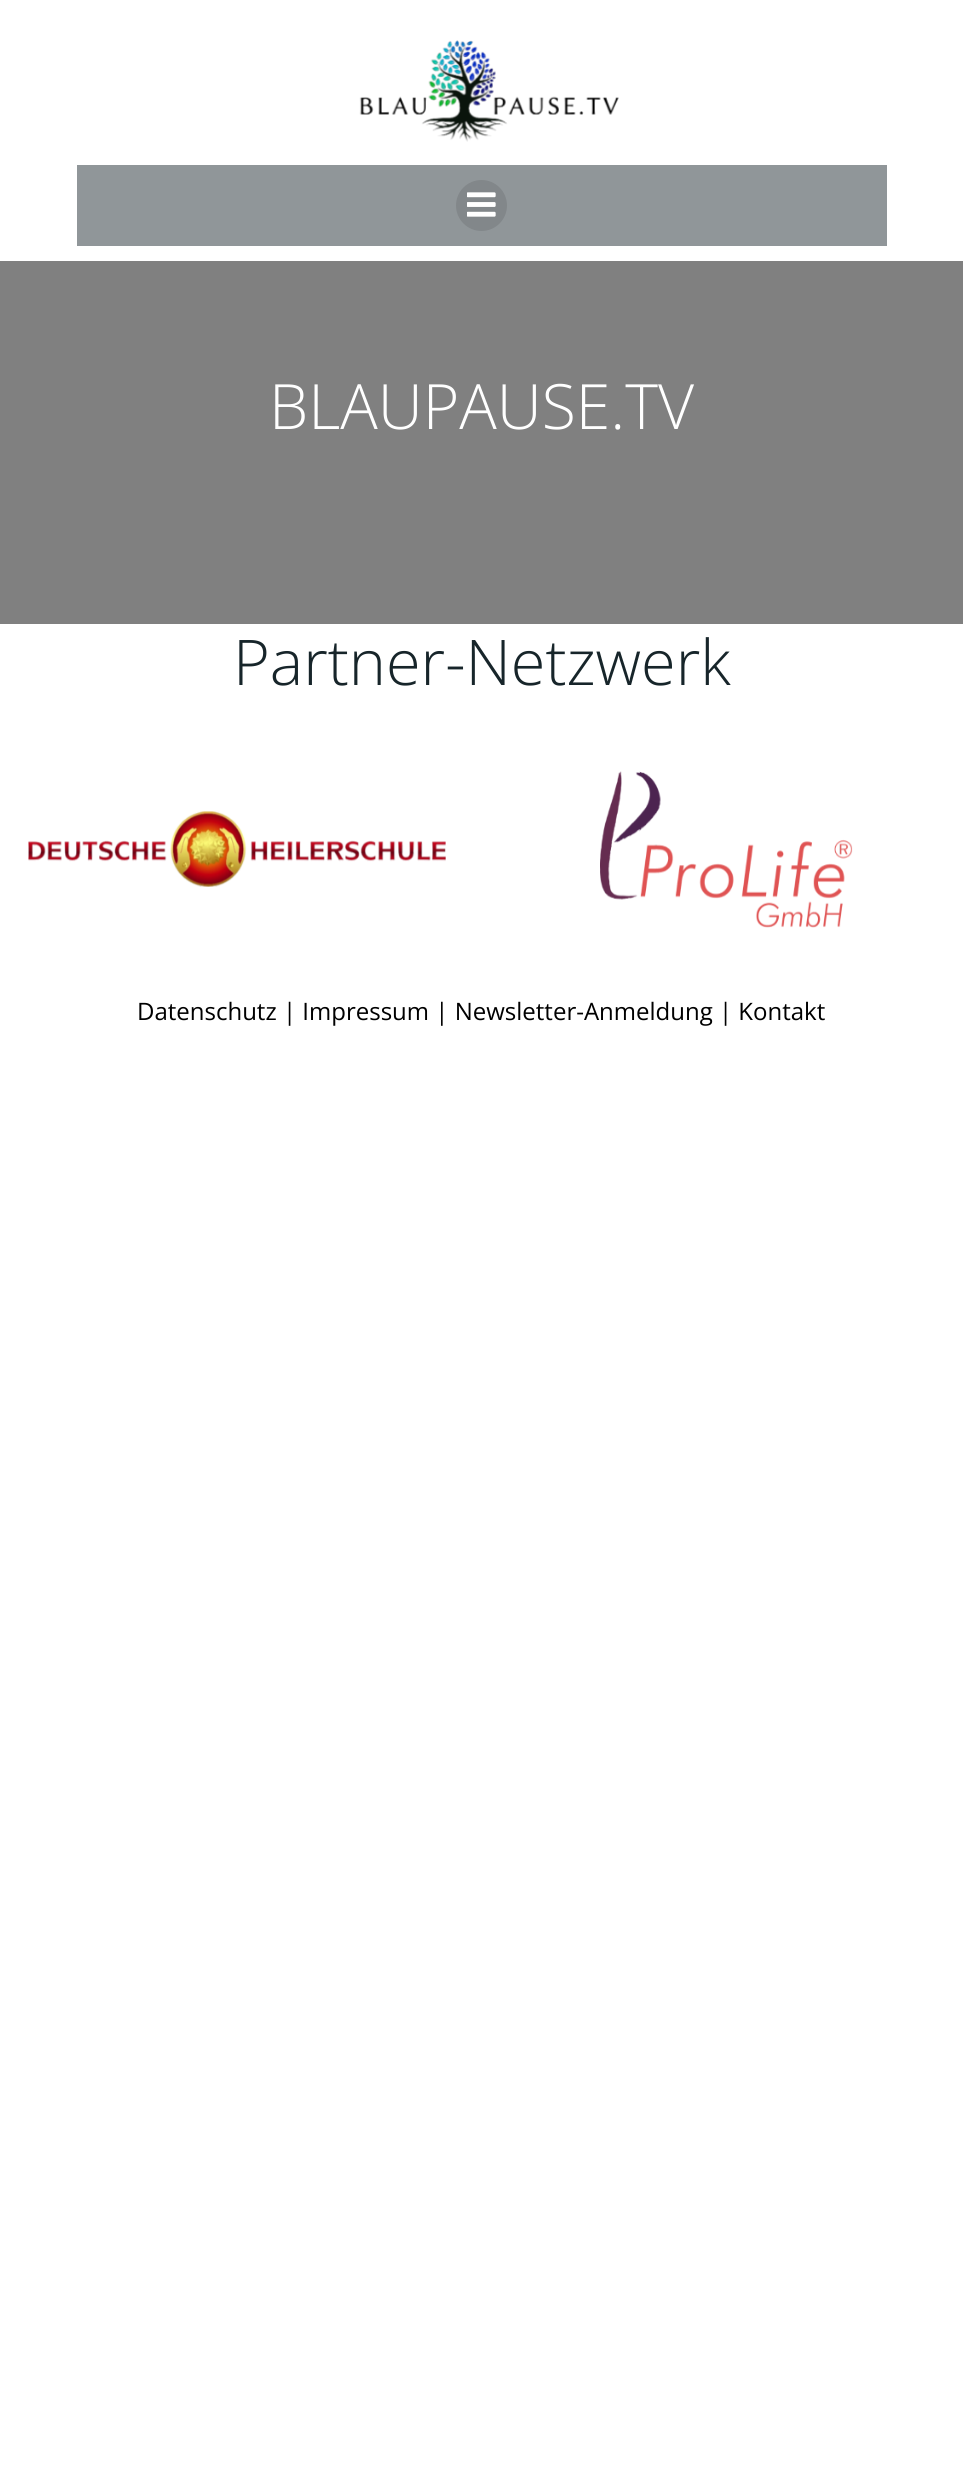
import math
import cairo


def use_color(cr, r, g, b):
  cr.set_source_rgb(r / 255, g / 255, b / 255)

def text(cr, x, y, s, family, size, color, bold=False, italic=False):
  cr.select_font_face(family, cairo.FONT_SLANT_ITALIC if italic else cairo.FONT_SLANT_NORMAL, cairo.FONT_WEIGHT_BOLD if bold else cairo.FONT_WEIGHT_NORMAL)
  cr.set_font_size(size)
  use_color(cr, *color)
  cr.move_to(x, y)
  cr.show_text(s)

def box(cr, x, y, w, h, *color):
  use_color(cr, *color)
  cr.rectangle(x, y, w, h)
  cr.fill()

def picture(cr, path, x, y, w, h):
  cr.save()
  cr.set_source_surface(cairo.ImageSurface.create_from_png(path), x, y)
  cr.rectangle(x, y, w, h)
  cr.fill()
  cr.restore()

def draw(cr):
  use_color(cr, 255, 255, 255)
  cr.paint()
  picture(cr, "img_01.png", 359, 40, 260, 102)
  box(cr, 77, 165, 810, 81, 144, 150, 153)
  use_color(cr, 130, 135, 138)
  cr.arc(481.5, 205.5, 25.5, 0, 2 * math.pi)
  cr.fill()
  picture(cr, "img_02.png", 467, 192, 29, 25)
  box(cr, 0, 261, 963, 363, 128, 128, 128)
  picture(cr, "img_03.png", 28, 811, 418, 76)
  picture(cr, "img_04.png", 600, 771, 253, 157)
  text(cr, 269, 429, "BLAUPAUSE.TV", "Open Sans Light", 62.5, (255, 255, 255))
  text(cr, 233, 685, "Partner-Netzwerk", "Open Sans Light", 63, (23, 37, 42))
  text(cr, 137, 1020, "Datenschutz | Impressum | Newsletter-Anmeldung | Kontakt", "Open Sans", 24, (0, 0, 0))


surface = cairo.ImageSurface(cairo.FORMAT_RGB24, 963, 2476)
cr = cairo.Context(surface)
options = cairo.FontOptions()
options.set_hint_metrics(cairo.HINT_METRICS_OFF)
options.set_hint_style(cairo.HINT_STYLE_NONE)
cr.set_font_options(options)
cr.set_miter_limit(4)
draw(cr)
surface.write_to_png("out.png")
